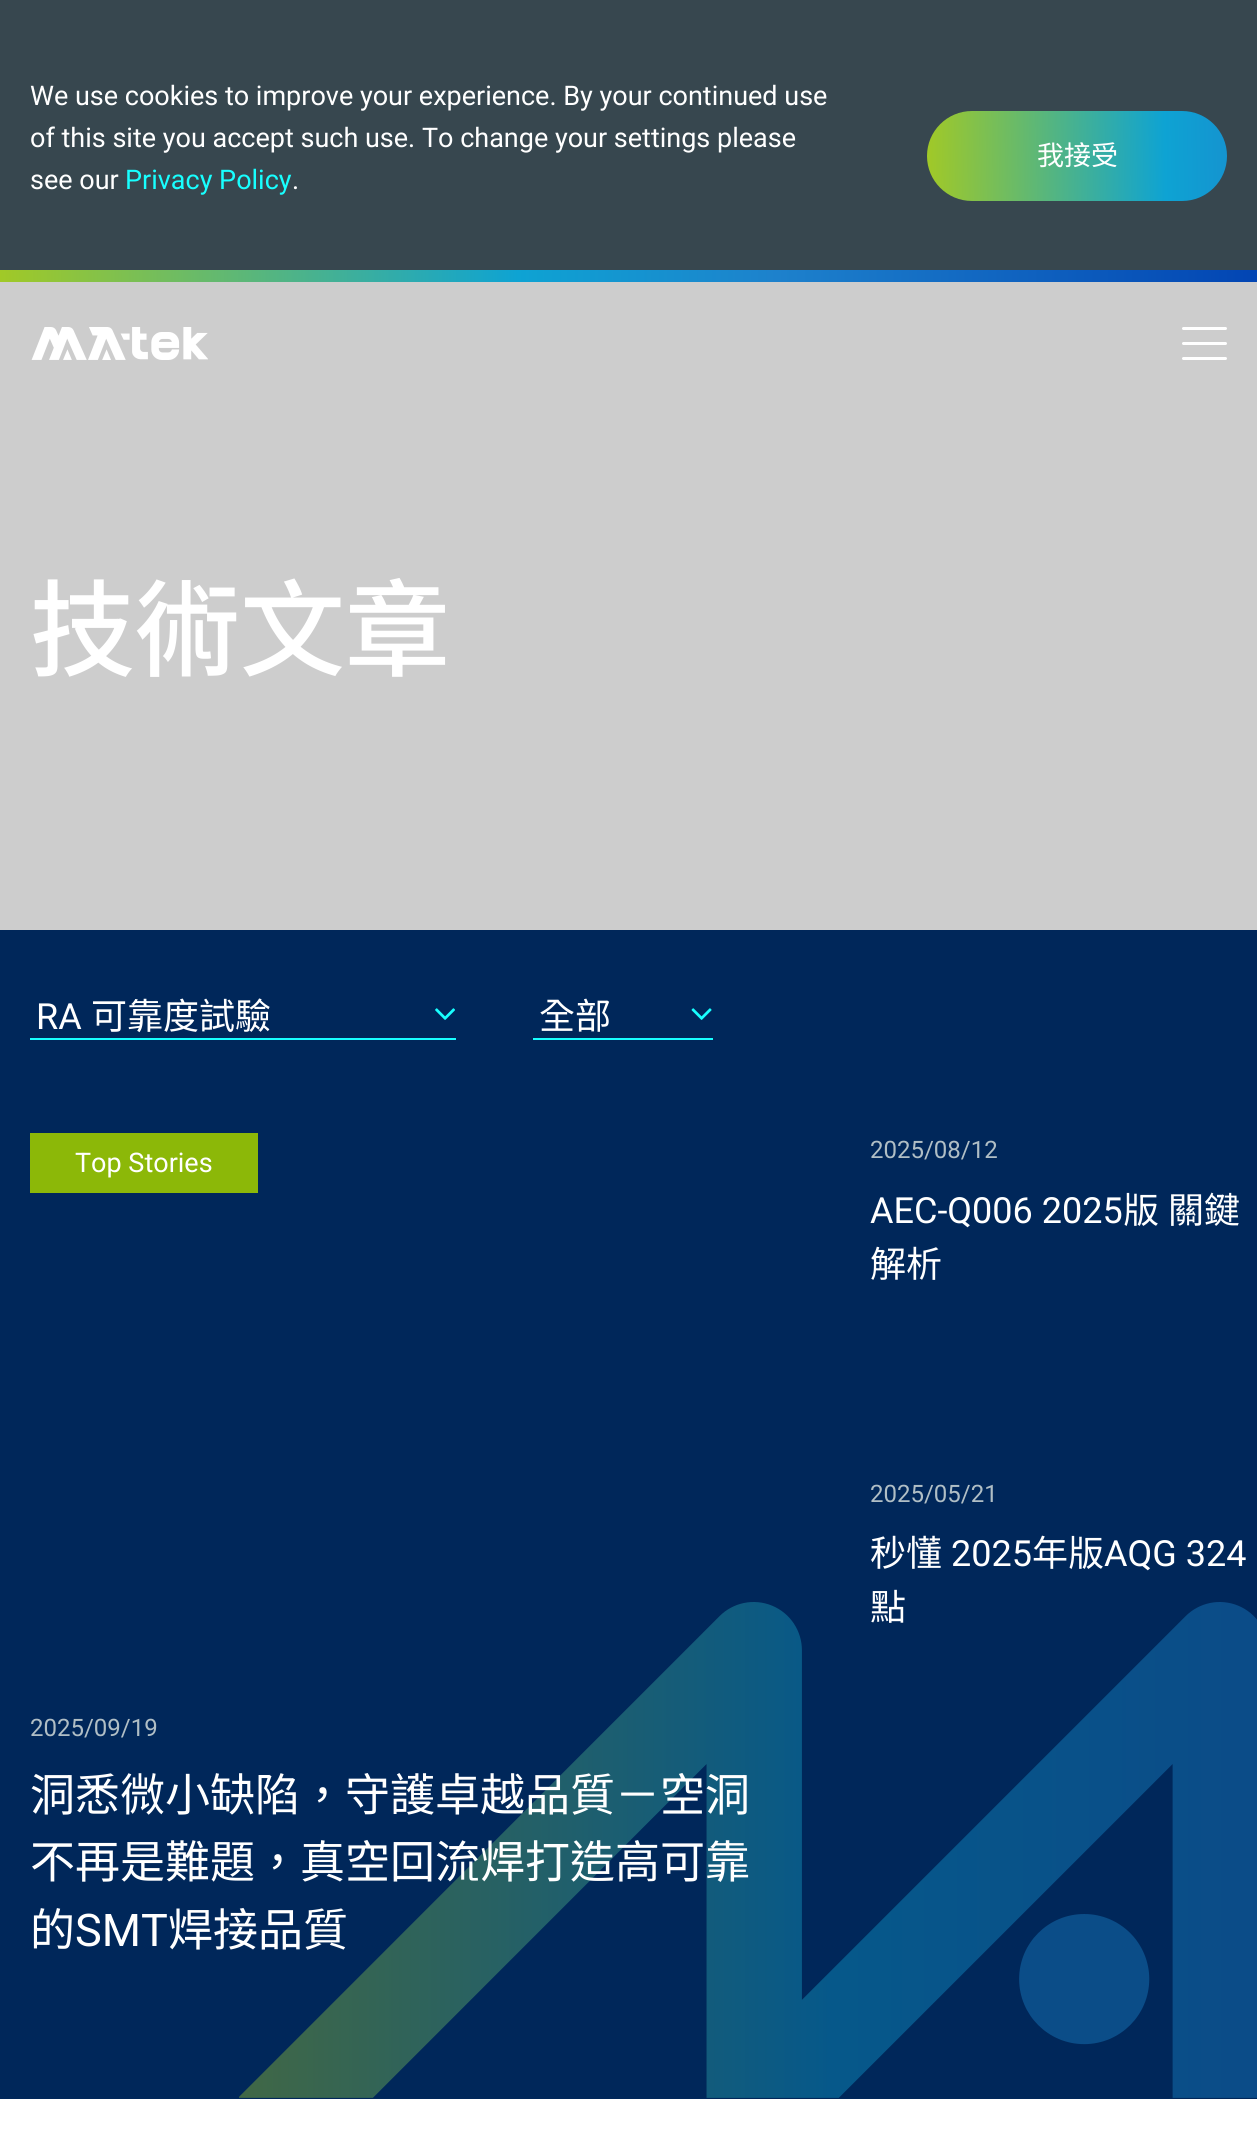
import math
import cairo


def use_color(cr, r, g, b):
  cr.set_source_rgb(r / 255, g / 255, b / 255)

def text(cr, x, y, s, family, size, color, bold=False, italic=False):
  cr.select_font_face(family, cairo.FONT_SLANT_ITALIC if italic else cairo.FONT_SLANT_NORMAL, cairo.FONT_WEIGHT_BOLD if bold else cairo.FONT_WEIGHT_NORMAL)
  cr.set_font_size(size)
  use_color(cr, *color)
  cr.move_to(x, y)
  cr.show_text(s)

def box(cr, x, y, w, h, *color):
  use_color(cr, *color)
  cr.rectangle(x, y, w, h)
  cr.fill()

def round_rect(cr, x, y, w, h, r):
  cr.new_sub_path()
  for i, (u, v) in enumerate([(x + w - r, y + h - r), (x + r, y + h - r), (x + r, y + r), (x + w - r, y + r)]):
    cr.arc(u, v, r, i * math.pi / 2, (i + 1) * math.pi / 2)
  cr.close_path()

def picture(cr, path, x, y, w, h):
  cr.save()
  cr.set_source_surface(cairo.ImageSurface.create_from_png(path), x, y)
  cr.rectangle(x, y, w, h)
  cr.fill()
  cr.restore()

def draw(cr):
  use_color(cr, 255, 255, 255)
  cr.paint()
  box(cr, 0, 0, 1257, 270, 55, 71, 79)
  gradient = cairo.LinearGradient(927, 167, 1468, 156)
  gradient.add_color_stop_rgba(0, 0.631, 0.788, 0.153, 1)
  gradient.add_color_stop_rgba(0.44, 0.055, 0.639, 0.827, 1)
  gradient.add_color_stop_rgba(0.7, 0.114, 0.506, 0.8, 1)
  gradient.add_color_stop_rgba(1, 0, 0.251, 0.694, 1)
  cr.set_source(gradient)
  round_rect(cr, 927, 111, 300, 90, 45)
  cr.fill()
  gradient = cairo.LinearGradient(0, 276, 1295, 276)
  gradient.add_color_stop_rgba(0, 0.631, 0.788, 0.153, 1)
  gradient.add_color_stop_rgba(0.4, 0.055, 0.639, 0.827, 1)
  gradient.add_color_stop_rgba(0.6, 0.114, 0.506, 0.8, 1)
  gradient.add_color_stop_rgba(1, 0, 0.251, 0.694, 1)
  cr.set_source(gradient)
  cr.rectangle(0, 270, 1257, 12)
  cr.fill()
  box(cr, 0, 282, 1257, 648, 205, 205, 205)
  picture(cr, "img_01.png", 31, 327, 177, 33)
  use_color(cr, 255, 255, 255)
  round_rect(cr, 1182, 327, 45, 3, 1.5)
  cr.fill()
  round_rect(cr, 1182, 342, 45, 3, 1.5)
  cr.fill()
  round_rect(cr, 1182, 357, 45, 3, 1.5)
  cr.fill()
  box(cr, 0, 930, 1257, 1169, 0, 39, 90)
  box(cr, 30, 1038, 426, 2, 24, 255, 255)
  picture(cr, "img_02.png", 435, 1008, 20, 12)
  box(cr, 533, 1038, 180, 2, 24, 255, 255)
  picture(cr, "img_03.png", 691, 1008, 21, 12)
  box(cr, 30, 1133, 228, 60, 140, 184, 8)
  picture(cr, "img_04.png", 239, 1602, 1018, 496)
  text(cr, 30, 105, "We use cookies to improve your experience. By your continued use", "Roboto", 27, (255, 255, 255))
  text(cr, 30, 147, "of this site you accept such use. To change your settings please", "Roboto", 27, (255, 255, 255))
  text(cr, 30, 189, "see our", "Roboto", 27, (255, 255, 255))
  text(cr, 125, 189, "Privacy Policy", "Roboto", 27, (24, 255, 255))
  text(cr, 292, 189, ".", "Roboto", 27, (255, 255, 255))
  text(cr, 1037, 165, "我接受", "Noto Sans TC", 27, (255, 255, 255))
  text(cr, 30, 668, "技術文章", "Noto Sans TC Medium", 105, (255, 255, 255))
  text(cr, 36, 1029, "RA", "Roboto", 36, (255, 255, 255))
  text(cr, 91, 1029, "可靠度試驗", "Noto Sans TC", 36, (255, 255, 255))
  text(cr, 539, 1029, "全部", "Noto Sans TC", 36, (255, 255, 255))
  text(cr, 75, 1172, "Top Stories", "Roboto", 27, (255, 255, 255))
  text(cr, 30, 1736, "2025/09/19", "Roboto", 24, (176, 190, 197))
  text(cr, 30, 1811, "洞悉微小缺陷，守護卓越品質－空洞", "Noto Sans TC", 45, (255, 255, 255))
  text(cr, 30, 1878, "不再是難題，真空回流焊打造高可靠", "Noto Sans TC", 45, (255, 255, 255))
  text(cr, 30, 1946, "的", "Noto Sans TC", 45, (255, 255, 255))
  text(cr, 75, 1946, "SMT", "Roboto", 45, (255, 255, 255))
  text(cr, 168, 1946, "焊接品質", "Noto Sans TC", 45, (255, 255, 255))
  text(cr, 870, 1158, "2025/08/12", "Roboto", 24, (176, 190, 197))
  text(cr, 870, 1223, "AEC-Q006 2025", "Roboto", 36, (255, 255, 255))
  text(cr, 1123, 1223, "版", "Noto Sans TC", 36, (255, 255, 255))
  text(cr, 1168, 1223, "關鍵", "Noto Sans TC", 36, (255, 255, 255))
  text(cr, 870, 1277, "解析", "Noto Sans TC", 36, (255, 255, 255))
  text(cr, 870, 1502, "2025/05/21", "Roboto", 24, (176, 190, 197))
  text(cr, 870, 1566, "秒懂", "Noto Sans TC", 36, (255, 255, 255))
  text(cr, 951, 1566, "2025", "Roboto", 36, (255, 255, 255))
  text(cr, 1032, 1566, "年版", "Noto Sans TC", 36, (255, 255, 255))
  text(cr, 1104, 1566, "AQG 324", "Roboto", 36, (255, 255, 255))
  text(cr, 870, 1620, "點", "Noto Sans TC", 36, (255, 255, 255))


surface = cairo.ImageSurface(cairo.FORMAT_RGB24, 1257, 2132)
cr = cairo.Context(surface)
options = cairo.FontOptions()
options.set_hint_metrics(cairo.HINT_METRICS_OFF)
options.set_hint_style(cairo.HINT_STYLE_NONE)
cr.set_font_options(options)
cr.set_miter_limit(4)
draw(cr)
surface.write_to_png("out.png")
